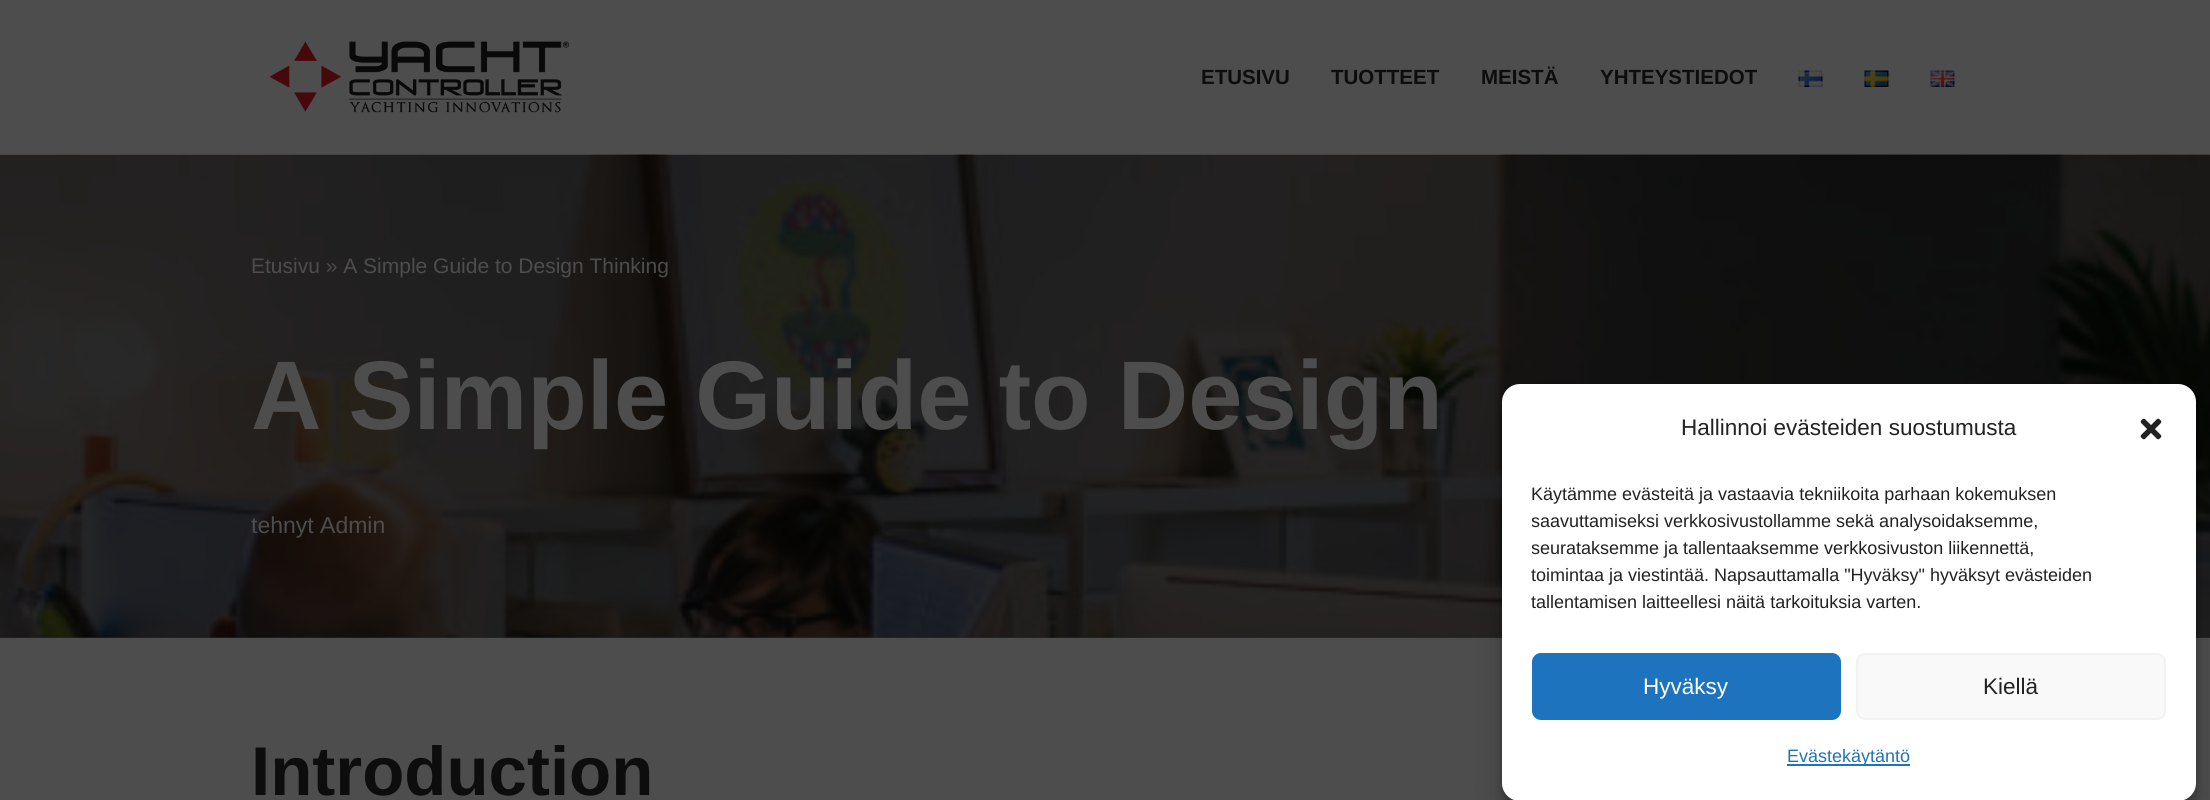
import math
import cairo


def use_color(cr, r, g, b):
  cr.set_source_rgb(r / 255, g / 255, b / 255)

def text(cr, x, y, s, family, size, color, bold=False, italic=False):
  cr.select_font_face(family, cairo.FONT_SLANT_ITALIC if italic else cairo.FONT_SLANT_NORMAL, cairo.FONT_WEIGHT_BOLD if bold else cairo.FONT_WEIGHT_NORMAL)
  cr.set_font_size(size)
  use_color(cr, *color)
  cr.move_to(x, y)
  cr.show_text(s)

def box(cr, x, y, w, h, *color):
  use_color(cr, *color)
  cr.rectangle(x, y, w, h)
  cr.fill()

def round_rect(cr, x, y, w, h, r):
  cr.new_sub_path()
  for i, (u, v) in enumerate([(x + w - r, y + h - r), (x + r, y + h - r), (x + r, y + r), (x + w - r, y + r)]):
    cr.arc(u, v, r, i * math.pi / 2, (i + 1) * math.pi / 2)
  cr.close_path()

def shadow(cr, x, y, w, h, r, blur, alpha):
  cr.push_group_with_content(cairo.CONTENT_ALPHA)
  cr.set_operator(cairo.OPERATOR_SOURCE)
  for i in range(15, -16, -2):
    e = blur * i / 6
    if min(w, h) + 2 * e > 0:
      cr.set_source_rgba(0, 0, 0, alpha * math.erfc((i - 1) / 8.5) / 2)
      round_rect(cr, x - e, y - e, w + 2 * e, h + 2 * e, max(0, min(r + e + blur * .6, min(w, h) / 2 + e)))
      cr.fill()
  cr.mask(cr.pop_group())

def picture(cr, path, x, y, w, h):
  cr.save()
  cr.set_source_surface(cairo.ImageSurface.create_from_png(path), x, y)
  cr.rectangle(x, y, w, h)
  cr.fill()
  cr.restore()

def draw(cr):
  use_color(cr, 77, 77, 77)
  cr.paint()
  picture(cr, "img_01.png", 269, 41, 301, 72)
  picture(cr, "img_02.png", 1798, 70, 25, 17)
  picture(cr, "img_03.png", 1864, 70, 25, 17)
  picture(cr, "img_04.png", 1930, 70, 25, 17)
  picture(cr, "img_05.png", 0, 154, 2210, 484)
  cr.set_source_rgba(0.024, 0.027, 0.031, 0.5)
  cr.rectangle(0, 155, 2210, 483)
  cr.fill()
  use_color(cr, 0, 0, 0)
  shadow(cr, 1502, 393, 694, 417, 18, 4.5, 0.23)
  shadow(cr, 1502, 399, 694, 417, 18, 15, 0.19)
  use_color(cr, 255, 255, 255)
  round_rect(cr, 1502, 384, 694, 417, 18)
  cr.fill()
  picture(cr, "img_06.png", 2140, 418, 22, 22)
  use_color(cr, 30, 115, 190)
  round_rect(cr, 1533, 654, 307, 65, 8)
  cr.fill_preserve()
  cr.stroke()
  use_color(cr, 249, 249, 249)
  round_rect(cr, 1857, 654, 308, 65, 8)
  cr.fill_preserve()
  use_color(cr, 242, 242, 242)
  cr.stroke()
  box(cr, 1787, 764, 123, 2, 30, 115, 190)
  text(cr, 1201, 84, "ETUSIVU", "Liberation Sans", 20.5, (13, 13, 13), bold=True)
  text(cr, 1331, 84, "TUOTTEET", "Liberation Sans", 20.5, (13, 13, 13), bold=True)
  text(cr, 1481, 84, "MEISTÄ", "Liberation Sans", 20.5, (13, 13, 13), bold=True)
  text(cr, 1600, 84, "YHTEYSTIEDOT", "Liberation Sans", 20.5, (13, 13, 13), bold=True)
  text(cr, 251, 273, "Etusivu » A Simple Guide to Design Thinking", "Liberation Sans", 21, (77, 77, 77))
  text(cr, 251, 429, "A Simple Guide to Design", "Liberation Sans", 97.5, (77, 77, 77), bold=True)
  text(cr, 251, 533, "tehnyt Admin", "Liberation Sans", 23, (77, 77, 77))
  text(cr, 251, 795, "Introduction", "Liberation Sans", 69, (13, 13, 13), bold=True)
  text(cr, 1681, 435, "Hallinnoi evästeiden suostumusta", "Liberation Sans", 22.5, (34, 34, 34))
  text(cr, 1531, 500, "Käytämme evästeitä ja vastaavia tekniikoita parhaan kokemuksen", "Liberation Sans", 18, (34, 34, 34))
  cr.save()
  cr.rectangle(1532, 480, 634, 143)
  cr.clip()
  text(cr, 1531, 527, "saavuttamiseksi verkkosivustollamme sekä analysoidaksemme,", "Liberation Sans", 18, (34, 34, 34))
  text(cr, 1531, 554, "seurataksemme ja tallentaaksemme verkkosivuston liikennettä,", "Liberation Sans", 18, (34, 34, 34))
  cr.restore()
  text(cr, 1531, 581, "toimintaa ja viestintää. Napsauttamalla \"Hyväksy\" hyväksyt evästeiden", "Liberation Sans", 18, (34, 34, 34))
  text(cr, 1531, 608, "tallentamisen laitteellesi näitä tarkoituksia varten.", "Liberation Sans", 18, (34, 34, 34))
  text(cr, 1643, 694, "Hyväksy", "Liberation Sans", 22.5, (255, 255, 255))
  text(cr, 1983, 694, "Kiellä", "Liberation Sans", 22.5, (34, 34, 34))
  text(cr, 1787, 762, "Evästekäytäntö", "Liberation Sans", 18, (30, 115, 190))


surface = cairo.ImageSurface(cairo.FORMAT_RGB24, 2210, 800)
cr = cairo.Context(surface)
options = cairo.FontOptions()
options.set_hint_metrics(cairo.HINT_METRICS_OFF)
options.set_hint_style(cairo.HINT_STYLE_NONE)
cr.set_font_options(options)
cr.set_miter_limit(4)
draw(cr)
surface.write_to_png("out.png")
